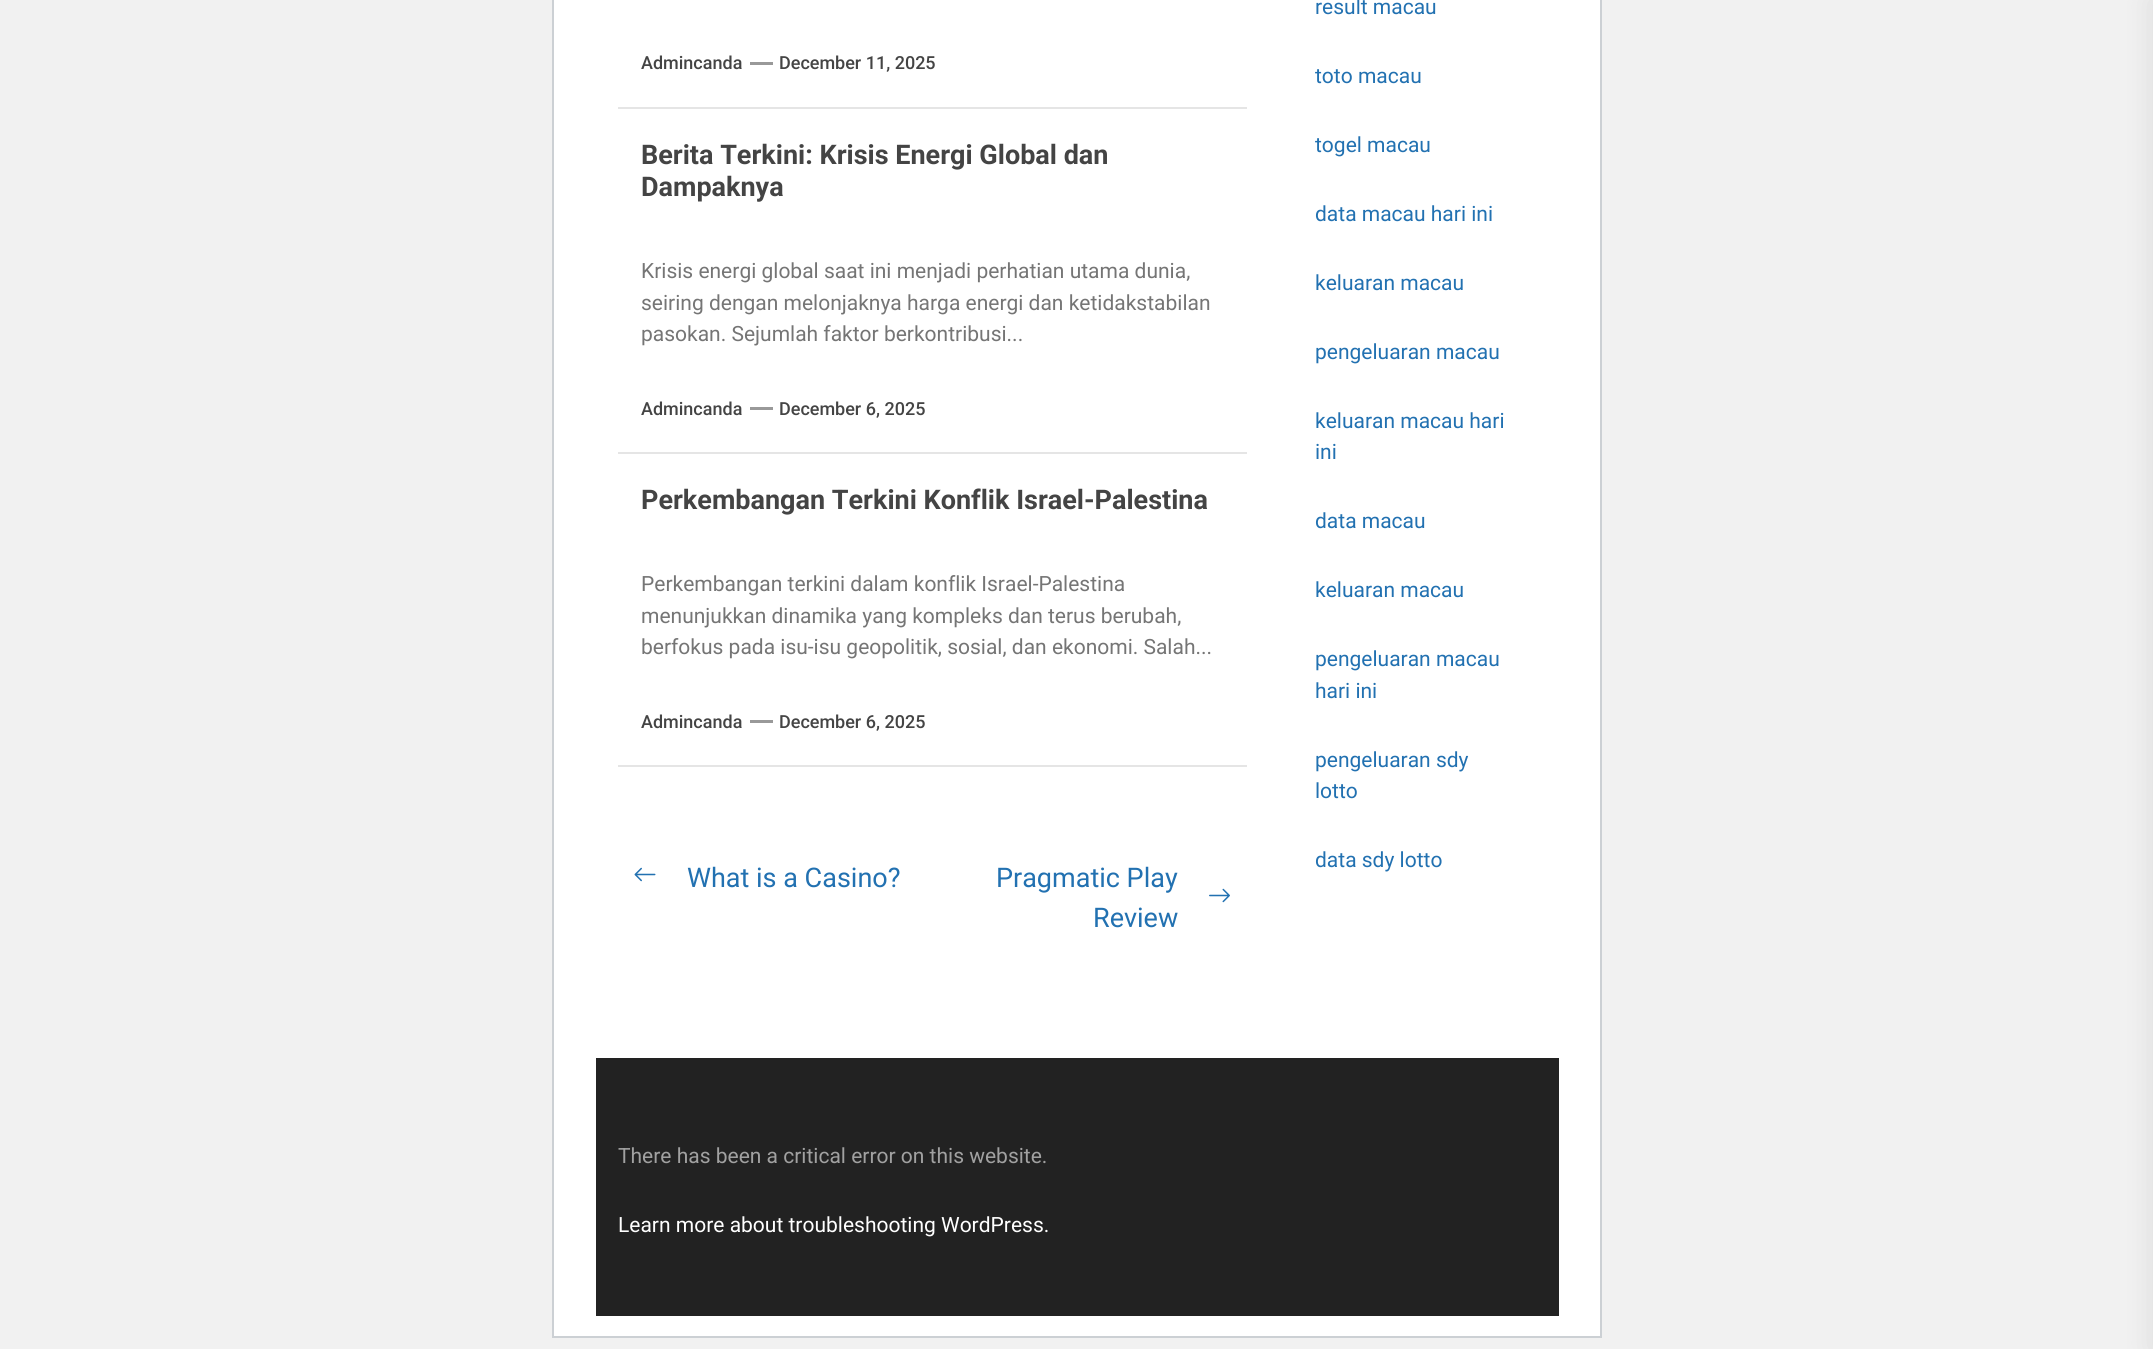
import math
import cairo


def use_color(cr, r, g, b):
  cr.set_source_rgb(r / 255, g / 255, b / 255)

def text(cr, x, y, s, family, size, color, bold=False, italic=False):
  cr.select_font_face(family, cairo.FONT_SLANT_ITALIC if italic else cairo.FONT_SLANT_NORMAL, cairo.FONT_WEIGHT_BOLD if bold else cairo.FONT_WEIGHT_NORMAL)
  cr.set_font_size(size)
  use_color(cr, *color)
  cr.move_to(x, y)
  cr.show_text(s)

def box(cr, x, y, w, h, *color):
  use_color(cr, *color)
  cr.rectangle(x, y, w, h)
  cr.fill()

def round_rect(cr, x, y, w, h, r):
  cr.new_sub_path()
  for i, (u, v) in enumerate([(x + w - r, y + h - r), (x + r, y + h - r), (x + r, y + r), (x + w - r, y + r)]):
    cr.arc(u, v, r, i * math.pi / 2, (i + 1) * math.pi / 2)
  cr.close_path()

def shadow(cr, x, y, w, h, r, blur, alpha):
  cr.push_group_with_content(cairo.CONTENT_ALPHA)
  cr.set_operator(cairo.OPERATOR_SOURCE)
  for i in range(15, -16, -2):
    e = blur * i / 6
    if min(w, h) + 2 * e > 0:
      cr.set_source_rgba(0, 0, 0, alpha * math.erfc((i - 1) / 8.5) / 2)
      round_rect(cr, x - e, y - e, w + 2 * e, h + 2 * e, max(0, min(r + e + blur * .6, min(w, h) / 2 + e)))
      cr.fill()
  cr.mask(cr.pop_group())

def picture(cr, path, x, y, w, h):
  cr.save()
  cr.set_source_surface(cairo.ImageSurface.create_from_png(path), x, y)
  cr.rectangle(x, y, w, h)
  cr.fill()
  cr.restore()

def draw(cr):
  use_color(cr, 241, 241, 241)
  cr.paint()
  use_color(cr, 255, 255, 255)
  cr.rectangle(553, -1, 1048, 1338)
  cr.fill_preserve()
  use_color(cr, 204, 208, 212)
  cr.stroke()
  box(cr, 618, 765, 629, 2, 229, 229, 229)
  box(cr, 618, 107, 629, 2, 229, 229, 229)
  box(cr, 750, 62, 23, 3, 153, 153, 153)
  box(cr, 618, 452, 629, 2, 229, 229, 229)
  box(cr, 750, 407, 23, 3, 153, 153, 153)
  box(cr, 750, 720, 23, 3, 153, 153, 153)
  picture(cr, "img_01.png", 634, 867, 22, 15)
  picture(cr, "img_02.png", 1209, 888, 21, 15)
  use_color(cr, 0, 0, 0)
  shadow(cr, 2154, 0, 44, 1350, 0, 15, 0.1)
  box(cr, 596, 1058, 963, 258, 34, 34, 34)
  text(cr, 641, 69, "Admincanda", "Roboto Medium", 18, (68, 68, 68))
  text(cr, 779, 69, "December 11, 2025", "Roboto Medium", 18, (68, 68, 68))
  text(cr, 641, 164, "Berita Terkini: Krisis Energi Global dan", "Roboto", 27, (68, 68, 68), bold=True)
  text(cr, 641, 196, "Dampaknya", "Roboto", 27, (68, 68, 68), bold=True)
  text(cr, 641, 278, "Krisis energi global saat ini menjadi perhatian utama dunia,", "Roboto", 21, (117, 117, 117))
  text(cr, 641, 310, "seiring dengan melonjaknya harga energi dan ketidakstabilan", "Roboto", 21, (117, 117, 117))
  text(cr, 641, 341, "pasokan. Sejumlah faktor berkontribusi...", "Roboto", 21, (117, 117, 117))
  text(cr, 641, 415, "Admincanda", "Roboto Medium", 18, (68, 68, 68))
  text(cr, 779, 415, "December 6, 2025", "Roboto Medium", 18, (68, 68, 68))
  text(cr, 641, 509, "Perkembangan Terkini Konflik Israel-Palestina", "Roboto", 27, (68, 68, 68), bold=True)
  text(cr, 641, 591, "Perkembangan terkini dalam konflik Israel-Palestina", "Roboto", 21, (117, 117, 117))
  text(cr, 641, 623, "menunjukkan dinamika yang kompleks dan terus berubah,", "Roboto", 21, (117, 117, 117))
  text(cr, 641, 654, "berfokus pada isu-isu geopolitik, sosial, dan ekonomi. Salah...", "Roboto", 21, (117, 117, 117))
  text(cr, 641, 728, "Admincanda", "Roboto Medium", 18, (68, 68, 68))
  text(cr, 779, 728, "December 6, 2025", "Roboto Medium", 18, (68, 68, 68))
  text(cr, 687, 887, "What is a Casino?", "Roboto", 27, (34, 113, 177))
  text(cr, 996, 887, "Pragmatic Play", "Roboto", 27, (34, 113, 177))
  text(cr, 1093, 927, "Review", "Roboto", 27, (34, 113, 177))
  text(cr, 1315, 14, "result macau", "Roboto", 21, (34, 113, 177))
  text(cr, 1315, 83, "toto macau", "Roboto", 21, (34, 113, 177))
  text(cr, 1315, 152, "togel macau", "Roboto", 21, (34, 113, 177))
  text(cr, 1315, 221, "data macau hari ini", "Roboto", 21, (34, 113, 177))
  text(cr, 1315, 290, "keluaran macau", "Roboto", 21, (34, 113, 177))
  text(cr, 1315, 359, "pengeluaran macau", "Roboto", 21, (34, 113, 177))
  text(cr, 1315, 428, "keluaran macau hari", "Roboto", 21, (34, 113, 177))
  text(cr, 1315, 459, "ini", "Roboto", 21, (34, 113, 177))
  text(cr, 1315, 528, "data macau", "Roboto", 21, (34, 113, 177))
  text(cr, 1315, 597, "keluaran macau", "Roboto", 21, (34, 113, 177))
  text(cr, 1315, 666, "pengeluaran macau", "Roboto", 21, (34, 113, 177))
  text(cr, 1315, 698, "hari ini", "Roboto", 21, (34, 113, 177))
  text(cr, 1315, 767, "pengeluaran sdy", "Roboto", 21, (34, 113, 177))
  text(cr, 1315, 798, "lotto", "Roboto", 21, (34, 113, 177))
  text(cr, 1315, 867, "data sdy lotto", "Roboto", 21, (34, 113, 177))
  text(cr, 618, 1163, "There has been a critical error on this website.", "Roboto", 21, (161, 161, 161))
  text(cr, 618, 1232, "Learn more about troubleshooting WordPress.", "Roboto", 21, (255, 255, 255))


surface = cairo.ImageSurface(cairo.FORMAT_RGB24, 2153, 1349)
cr = cairo.Context(surface)
options = cairo.FontOptions()
options.set_hint_metrics(cairo.HINT_METRICS_OFF)
options.set_hint_style(cairo.HINT_STYLE_NONE)
cr.set_font_options(options)
cr.set_miter_limit(4)
draw(cr)
surface.write_to_png("out.png")
